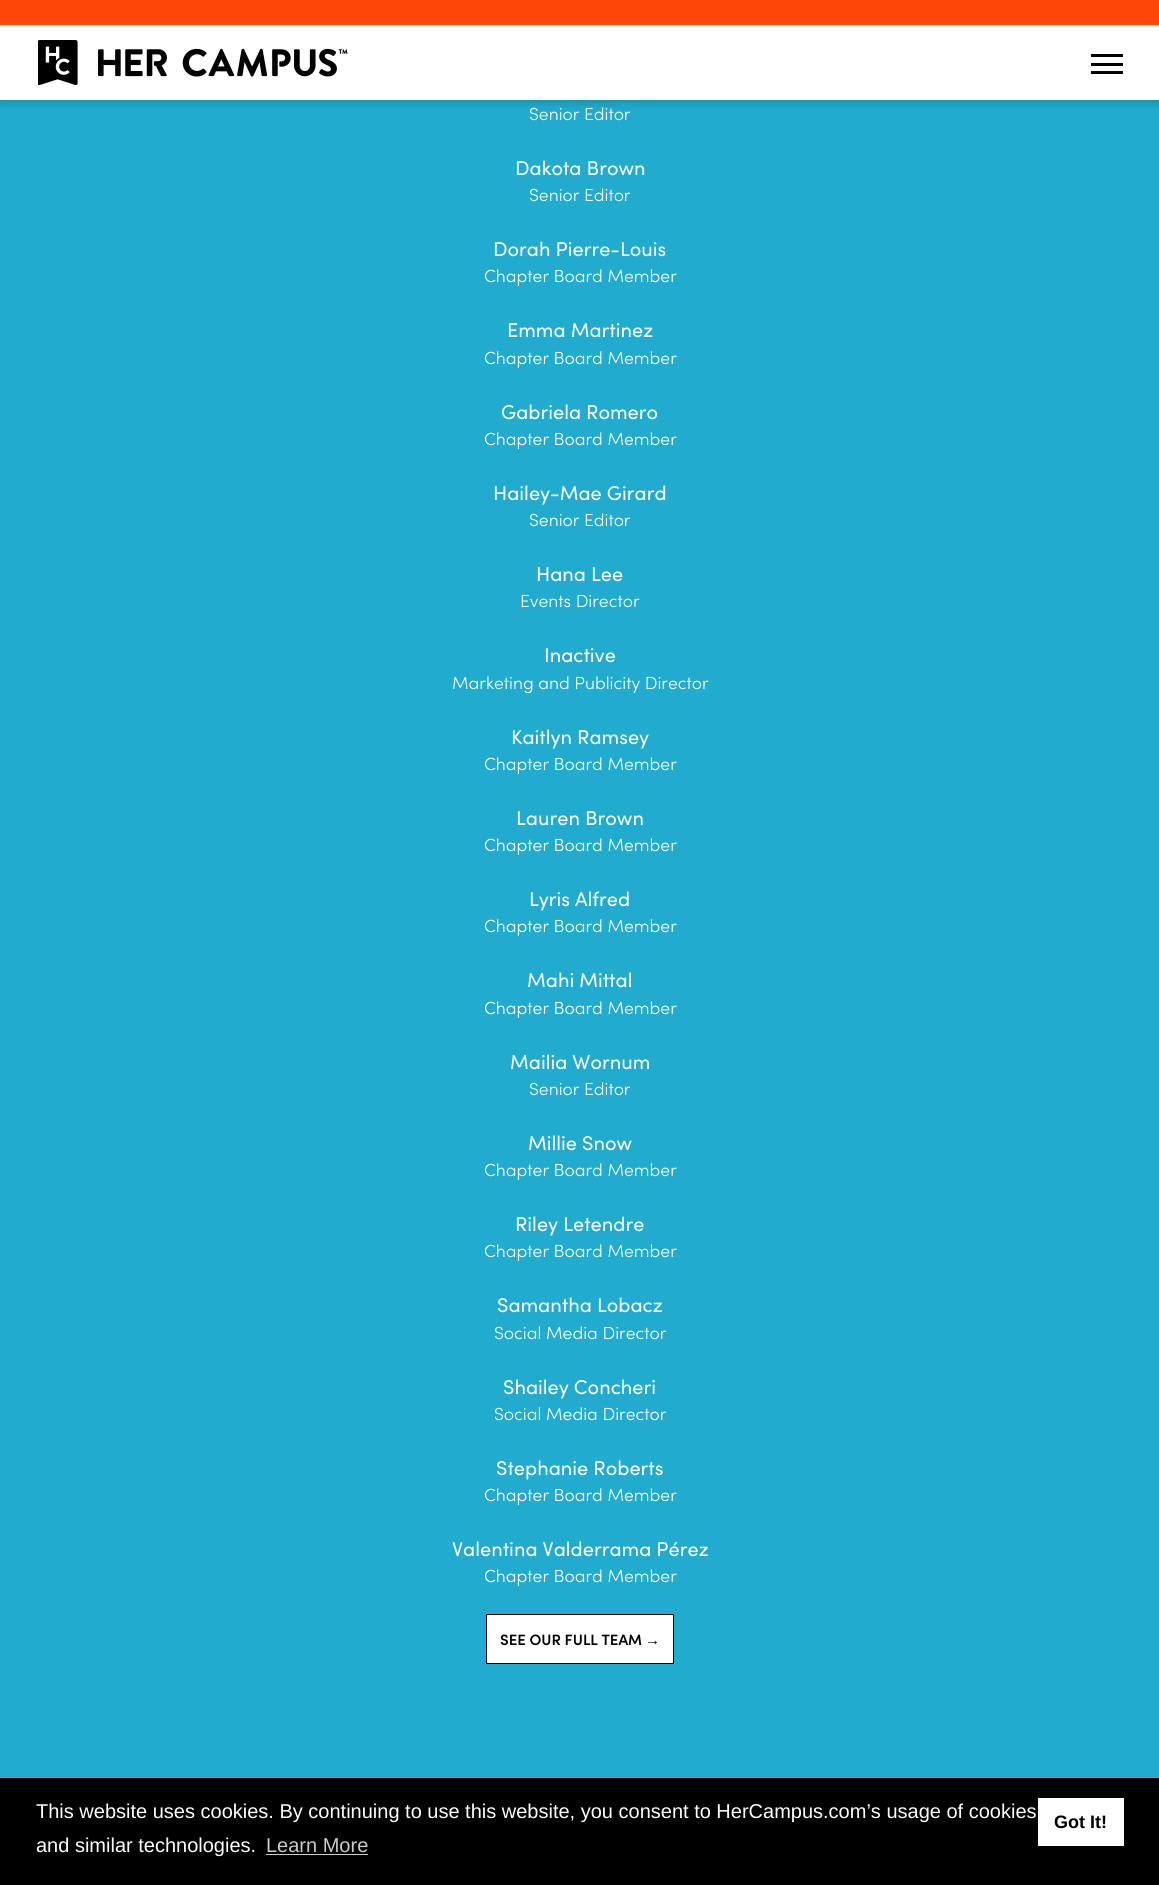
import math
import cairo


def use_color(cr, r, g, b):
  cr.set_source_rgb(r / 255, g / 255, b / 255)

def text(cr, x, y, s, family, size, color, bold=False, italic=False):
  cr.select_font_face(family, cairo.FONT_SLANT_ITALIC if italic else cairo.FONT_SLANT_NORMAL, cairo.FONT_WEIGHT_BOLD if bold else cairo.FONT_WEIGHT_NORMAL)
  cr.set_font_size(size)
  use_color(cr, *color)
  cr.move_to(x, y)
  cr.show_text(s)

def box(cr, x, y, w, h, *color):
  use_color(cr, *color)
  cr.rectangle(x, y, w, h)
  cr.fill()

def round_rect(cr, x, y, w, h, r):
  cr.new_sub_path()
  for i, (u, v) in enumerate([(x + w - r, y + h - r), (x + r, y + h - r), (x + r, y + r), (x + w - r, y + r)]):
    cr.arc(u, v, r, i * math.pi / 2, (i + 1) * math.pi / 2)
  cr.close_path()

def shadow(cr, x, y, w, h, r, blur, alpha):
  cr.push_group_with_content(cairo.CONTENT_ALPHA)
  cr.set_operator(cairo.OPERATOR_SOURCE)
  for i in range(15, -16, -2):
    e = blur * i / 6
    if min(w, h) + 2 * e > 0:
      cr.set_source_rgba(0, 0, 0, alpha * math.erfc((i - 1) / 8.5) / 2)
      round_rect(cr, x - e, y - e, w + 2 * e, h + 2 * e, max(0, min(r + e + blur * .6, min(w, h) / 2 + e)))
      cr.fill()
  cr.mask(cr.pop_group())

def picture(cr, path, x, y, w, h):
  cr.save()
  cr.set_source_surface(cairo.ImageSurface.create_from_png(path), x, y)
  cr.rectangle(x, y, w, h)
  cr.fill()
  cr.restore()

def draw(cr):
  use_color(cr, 33, 171, 206)
  cr.paint()
  use_color(cr, 0, 0, 0)
  shadow(cr, 0, 4, 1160, 100, 0, 4, 0.16)
  box(cr, 0, 25, 1159, 75, 255, 255, 255)
  box(cr, 0, 0, 1159, 25, 254, 71, 9)
  picture(cr, "img_01.png", 38, 40, 310, 45)
  box(cr, 1091, 54, 32, 3, 0, 0, 0)
  box(cr, 1091, 63, 32, 3, 0, 0, 0)
  box(cr, 1091, 71, 32, 3, 0, 0, 0)
  use_color(cr, 255, 255, 255)
  cr.rectangle(486.5, 1614.5, 187, 49)
  cr.fill_preserve()
  use_color(cr, 0, 0, 0)
  cr.set_line_width(1)
  cr.stroke()
  box(cr, 0, 1778, 1159, 107, 0, 0, 0)
  box(cr, 1038, 1798, 86, 48, 255, 255, 255)
  box(cr, 266, 1854, 102, 1, 204, 204, 204)
  text(cr, 529, 120, "Senior Editor", "Sofia Light", 17.5, (255, 255, 255))
  text(cr, 515, 175, "Dakota Brown", "Sofia", 20, (255, 255, 255))
  text(cr, 529, 201, "Senior Editor", "Sofia Light", 17.5, (255, 255, 255))
  text(cr, 493, 256, "Dorah Pierre-Louis", "Sofia", 20, (255, 255, 255))
  text(cr, 484, 282, "Chapter Board Member", "Sofia Light", 17.5, (255, 255, 255))
  text(cr, 507, 337, "Emma Martinez", "Sofia", 20, (255, 255, 255))
  text(cr, 484, 364, "Chapter Board Member", "Sofia Light", 17.5, (255, 255, 255))
  text(cr, 501, 419, "Gabriela Romero", "Sofia", 20, (255, 255, 255))
  text(cr, 484, 445, "Chapter Board Member", "Sofia Light", 17.5, (255, 255, 255))
  text(cr, 493, 500, "Hailey-Mae Girard", "Sofia", 20, (255, 255, 255))
  text(cr, 529, 526, "Senior Editor", "Sofia Light", 17.5, (255, 255, 255))
  text(cr, 536, 581, "Hana Lee", "Sofia", 20, (255, 255, 255))
  text(cr, 520, 607, "Events Director", "Sofia Light", 17.5, (255, 255, 255))
  text(cr, 544, 662, "Inactive", "Sofia", 20, (255, 255, 255))
  text(cr, 452, 689, "Marketing and Publicity Director", "Sofia Light", 17.5, (255, 255, 255))
  text(cr, 511, 744, "Kaitlyn Ramsey", "Sofia", 20, (255, 255, 255))
  text(cr, 484, 770, "Chapter Board Member", "Sofia Light", 17.5, (255, 255, 255))
  text(cr, 516, 825, "Lauren Brown", "Sofia", 20, (255, 255, 255))
  text(cr, 484, 851, "Chapter Board Member", "Sofia Light", 17.5, (255, 255, 255))
  text(cr, 529, 906, "Lyris Alfred", "Sofia", 20, (255, 255, 255))
  text(cr, 484, 932, "Chapter Board Member", "Sofia Light", 17.5, (255, 255, 255))
  text(cr, 527, 987, "Mahi Mittal", "Sofia", 20, (255, 255, 255))
  text(cr, 484, 1014, "Chapter Board Member", "Sofia Light", 17.5, (255, 255, 255))
  text(cr, 510, 1069, "Mailia Wornum", "Sofia", 20, (255, 255, 255))
  text(cr, 529, 1095, "Senior Editor", "Sofia Light", 17.5, (255, 255, 255))
  text(cr, 528, 1150, "Millie Snow", "Sofia", 20, (255, 255, 255))
  text(cr, 484, 1176, "Chapter Board Member", "Sofia Light", 17.5, (255, 255, 255))
  text(cr, 515, 1231, "Riley Letendre", "Sofia", 20, (255, 255, 255))
  text(cr, 484, 1257, "Chapter Board Member", "Sofia Light", 17.5, (255, 255, 255))
  text(cr, 497, 1312, "Samantha Lobacz", "Sofia", 20, (255, 255, 255))
  text(cr, 494, 1339, "Social Media Director", "Sofia Light", 17.5, (255, 255, 255))
  text(cr, 503, 1394, "Shailey Concheri", "Sofia", 20, (255, 255, 255))
  text(cr, 494, 1420, "Social Media Director", "Sofia Light", 17.5, (255, 255, 255))
  text(cr, 496, 1475, "Stephanie Roberts", "Sofia", 20, (255, 255, 255))
  text(cr, 484, 1501, "Chapter Board Member", "Sofia Light", 17.5, (255, 255, 255))
  text(cr, 452, 1556, "Valentina Valderrama Pérez", "Sofia", 20, (255, 255, 255))
  text(cr, 484, 1582, "Chapter Board Member", "Sofia Light", 17.5, (255, 255, 255))
  text(cr, 500, 1645, "SEE OUR FULL TEAM", "Sofia SemiBold", 15, (0, 0, 0))
  text(cr, 645, 1645, "→", "Liberation Sans", 15, (0, 0, 0), bold=True)
  text(cr, 36, 1818, "This website uses cookies. By continuing to use this website, you consent to HerCampus.com’s usage of cookies", "Liberation Sans", 20, (255, 255, 255))
  text(cr, 1054, 1828, "Got It!", "Liberation Sans", 18, (0, 0, 0), bold=True)
  text(cr, 36, 1852, "and similar technologies.", "Liberation Sans", 20, (255, 255, 255))
  text(cr, 266, 1852, "Learn More", "Liberation Sans", 20, (204, 204, 204))


surface = cairo.ImageSurface(cairo.FORMAT_RGB24, 1159, 1885)
cr = cairo.Context(surface)
options = cairo.FontOptions()
options.set_hint_metrics(cairo.HINT_METRICS_OFF)
options.set_hint_style(cairo.HINT_STYLE_NONE)
cr.set_font_options(options)
cr.set_miter_limit(4)
draw(cr)
surface.write_to_png("out.png")
